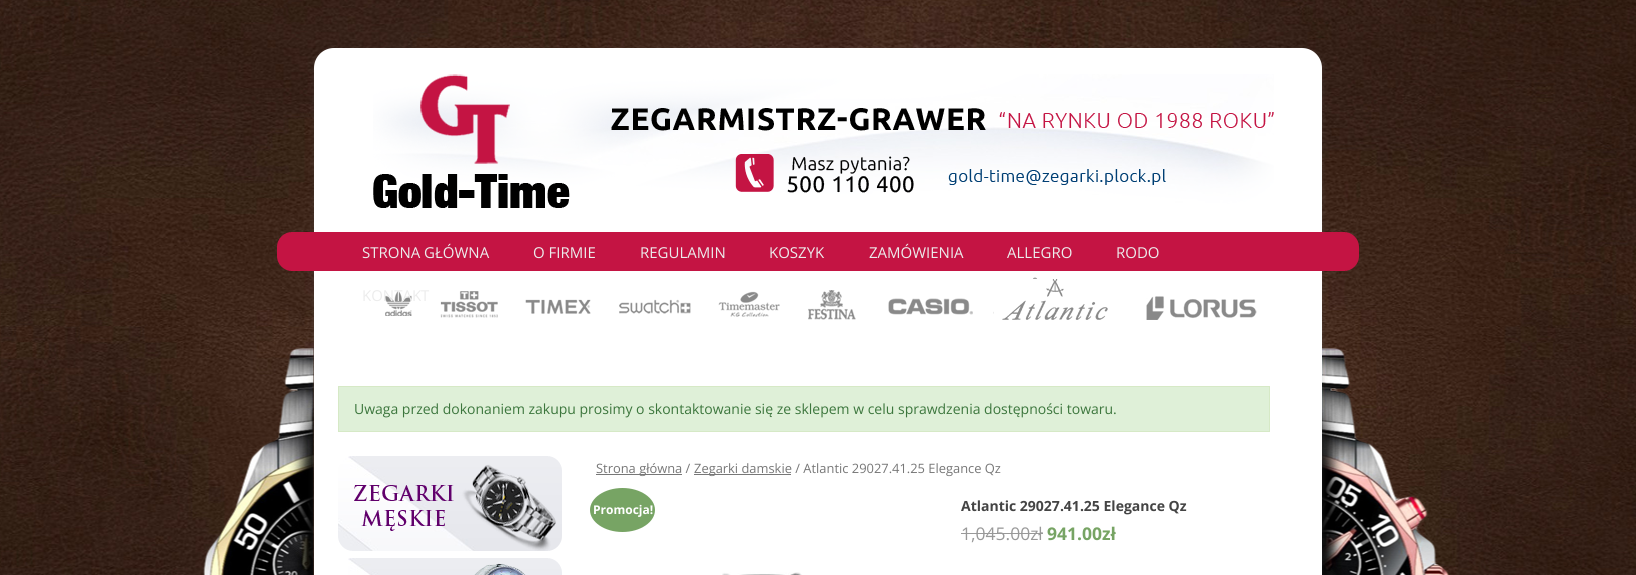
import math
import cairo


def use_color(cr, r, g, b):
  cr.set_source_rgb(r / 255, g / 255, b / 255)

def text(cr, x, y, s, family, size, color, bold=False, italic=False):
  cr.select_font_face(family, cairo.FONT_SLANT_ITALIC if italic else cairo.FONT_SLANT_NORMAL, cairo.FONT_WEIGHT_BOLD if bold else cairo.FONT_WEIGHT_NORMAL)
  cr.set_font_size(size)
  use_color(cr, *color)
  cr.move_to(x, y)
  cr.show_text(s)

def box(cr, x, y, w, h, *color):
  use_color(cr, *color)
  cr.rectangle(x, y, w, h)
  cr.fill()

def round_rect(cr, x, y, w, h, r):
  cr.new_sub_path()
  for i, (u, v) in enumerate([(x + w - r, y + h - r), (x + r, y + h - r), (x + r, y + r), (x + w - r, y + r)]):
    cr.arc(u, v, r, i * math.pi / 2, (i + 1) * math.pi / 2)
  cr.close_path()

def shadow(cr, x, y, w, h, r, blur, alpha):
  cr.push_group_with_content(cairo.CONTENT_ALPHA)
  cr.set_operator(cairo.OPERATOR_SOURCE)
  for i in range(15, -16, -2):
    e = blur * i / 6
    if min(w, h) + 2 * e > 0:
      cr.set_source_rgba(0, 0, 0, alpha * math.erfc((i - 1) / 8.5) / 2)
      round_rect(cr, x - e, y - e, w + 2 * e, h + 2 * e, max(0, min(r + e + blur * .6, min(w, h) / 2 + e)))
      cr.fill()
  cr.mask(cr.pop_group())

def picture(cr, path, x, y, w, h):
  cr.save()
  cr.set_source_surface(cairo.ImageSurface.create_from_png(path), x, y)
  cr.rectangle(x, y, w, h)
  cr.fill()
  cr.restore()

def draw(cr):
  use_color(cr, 255, 255, 255)
  cr.paint()
  picture(cr, "img_01.png", 0, 0, 1636, 575)
  use_color(cr, 100, 100, 100)
  shadow(cr, 314, 50, 1008, 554, 20, 3, 0.3)
  use_color(cr, 255, 255, 255)
  round_rect(cr, 314, 48, 1008, 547, 20)
  cr.fill()
  picture(cr, "img_02.png", 277, 232, 1082, 88)
  picture(cr, "img_03.png", 373, 74, 901, 134)
  use_color(cr, 223, 240, 216)
  cr.rectangle(338.5, 386.5, 931, 45)
  cr.fill_preserve()
  use_color(cr, 214, 233, 198)
  cr.set_line_width(1)
  cr.stroke()
  picture(cr, "img_04.png", 338, 456, 224, 95)
  picture(cr, "img_05.png", 348, 558, 214, 17)
  box(cr, 596, 474, 86, 1, 119, 119, 119)
  box(cr, 694, 474, 97, 1, 119, 119, 119)
  use_color(cr, 119, 164, 100)
  cr.new_path()
  cr.move_to(622.5, 488)
  cr.curve_to(640.5, 488, 655, 498, 655, 510)
  cr.curve_to(655, 522, 640.5, 532, 622.5, 532)
  cr.curve_to(604.5, 532, 590, 522, 590, 510)
  cr.curve_to(590, 498, 604.5, 488, 622.5, 488)
  cr.close_path()
  cr.fill()
  box(cr, 961, 533, 82, 1, 153, 153, 153)
  picture(cr, "img_06.png", 722, 572, 80, 3)
  text(cr, 362, 258, "STRONA GŁÓWNA", "Open Sans", 15, (236, 236, 236))
  text(cr, 533, 258, "O FIRMIE", "Open Sans", 15, (236, 236, 236))
  text(cr, 640, 258, "REGULAMIN", "Open Sans", 15, (236, 236, 236))
  text(cr, 769, 258, "KOSZYK", "Open Sans", 15, (236, 236, 236))
  text(cr, 869, 258, "ZAMÓWIENIA", "Open Sans", 15, (236, 236, 236))
  text(cr, 1007, 258, "ALLEGRO", "Open Sans", 15, (236, 236, 236))
  text(cr, 1116, 258, "RODO", "Open Sans", 15, (236, 236, 236))
  text(cr, 362, 301, "KONTAKT", "Open Sans", 15, (236, 236, 236))
  text(cr, 354, 414, "Uwaga przed dokonaniem zakupu prosimy o skontaktowanie się ze sklepem w celu sprawdzenia dostępności towaru.", "Open Sans", 14, (60, 118, 61))
  text(cr, 596, 473, "Strona główna /", "Open Sans", 12.9, (119, 119, 119))
  text(cr, 694, 473, "Zegarki damskie / Atlantic 29027.41.25 Elegance Qz", "Open Sans", 12.9, (119, 119, 119))
  text(cr, 593, 514, "Promocja!", "Open Sans", 12, (255, 255, 255), bold=True)
  text(cr, 961, 511, "Atlantic 29027.41.25 Elegance Qz", "Open Sans", 14, (68, 68, 68), bold=True)
  text(cr, 961, 540, "1,045.00zł", "Open Sans", 17.5, (153, 153, 153))
  text(cr, 1047, 540, "941.00zł", "Open Sans", 17.5, (119, 164, 100), bold=True)


surface = cairo.ImageSurface(cairo.FORMAT_RGB24, 1636, 575)
cr = cairo.Context(surface)
options = cairo.FontOptions()
options.set_hint_metrics(cairo.HINT_METRICS_OFF)
options.set_hint_style(cairo.HINT_STYLE_NONE)
cr.set_font_options(options)
cr.set_miter_limit(4)
draw(cr)
surface.write_to_png("out.png")
